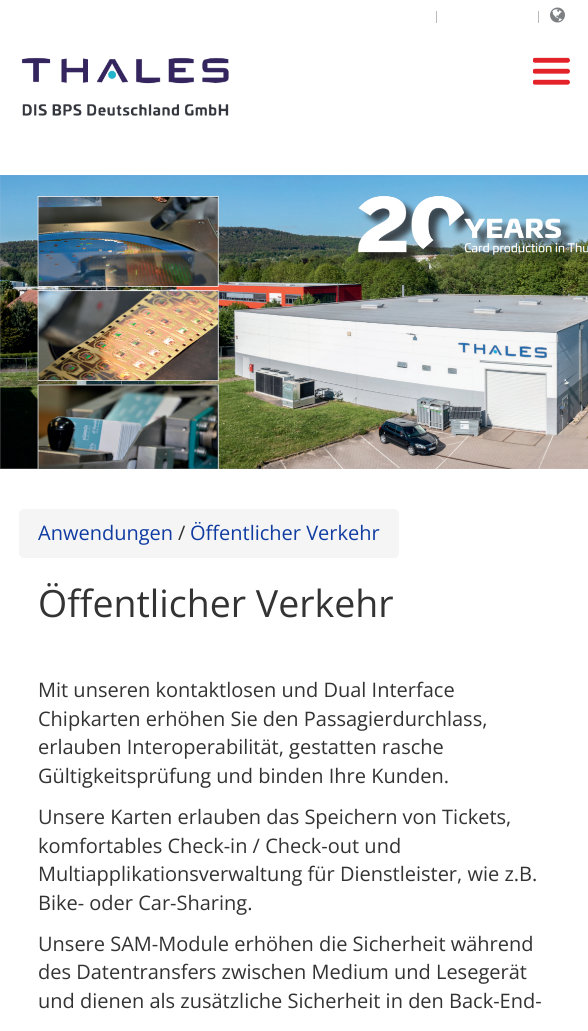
import math
import cairo


def use_color(cr, r, g, b):
  cr.set_source_rgb(r / 255, g / 255, b / 255)

def text(cr, x, y, s, family, size, color, bold=False, italic=False):
  cr.select_font_face(family, cairo.FONT_SLANT_ITALIC if italic else cairo.FONT_SLANT_NORMAL, cairo.FONT_WEIGHT_BOLD if bold else cairo.FONT_WEIGHT_NORMAL)
  cr.set_font_size(size)
  use_color(cr, *color)
  cr.move_to(x, y)
  cr.show_text(s)

def box(cr, x, y, w, h, *color):
  use_color(cr, *color)
  cr.rectangle(x, y, w, h)
  cr.fill()

def round_rect(cr, x, y, w, h, r):
  cr.new_sub_path()
  for i, (u, v) in enumerate([(x + w - r, y + h - r), (x + r, y + h - r), (x + r, y + r), (x + w - r, y + r)]):
    cr.arc(u, v, r, i * math.pi / 2, (i + 1) * math.pi / 2)
  cr.close_path()

def picture(cr, path, x, y, w, h):
  cr.save()
  cr.set_source_surface(cairo.ImageSurface.create_from_png(path), x, y)
  cr.rectangle(x, y, w, h)
  cr.fill()
  cr.restore()

def draw(cr):
  use_color(cr, 255, 255, 255)
  cr.paint()
  box(cr, 436, 11, 1, 12, 187, 187, 187)
  box(cr, 538, 11, 1, 12, 187, 187, 187)
  picture(cr, "img_01.png", 550, 7, 15, 16)
  picture(cr, "img_02.png", 21, 57, 208, 59)
  picture(cr, "img_03.png", 533, 57, 37, 28)
  picture(cr, "img_04.png", 0, 175, 588, 294)
  use_color(cr, 245, 245, 245)
  round_rect(cr, 19, 509, 380, 49, 5)
  cr.fill()
  text(cr, 38, 540, "Anwendungen", "Open Sans", 20, (16, 60, 162))
  text(cr, 178, 540, "/", "Open Sans", 20, (51, 51, 51))
  text(cr, 190, 540, "Öffentlicher Verkehr", "Open Sans", 20, (16, 60, 162))
  text(cr, 38, 617, "Öffentlicher Verkehr", "Open Sans", 37.5, (51, 51, 51))
  text(cr, 38, 697, "Mit unseren kontaktlosen und Dual Interface", "Open Sans", 20, (51, 51, 51))
  text(cr, 38, 726, "Chipkarten erhöhen Sie den Passagierdurchlass,", "Open Sans", 20, (51, 51, 51))
  text(cr, 38, 754, "erlauben Interoperabilität, gestatten rasche", "Open Sans", 20, (51, 51, 51))
  text(cr, 38, 783, "Gültigkeitsprüfung und binden Ihre Kunden.", "Open Sans", 20, (51, 51, 51))
  text(cr, 38, 824, "Unsere Karten erlauben das Speichern von Tickets,", "Open Sans", 20, (51, 51, 51))
  text(cr, 38, 853, "komfortables Check-in / Check-out und", "Open Sans", 20, (51, 51, 51))
  text(cr, 38, 881, "Multiapplikationsverwaltung für Dienstleister, wie z.B.", "Open Sans", 20, (51, 51, 51))
  text(cr, 38, 910, "Bike- oder Car-Sharing.", "Open Sans", 20, (51, 51, 51))
  text(cr, 38, 951, "Unsere SAM-Module erhöhen die Sicherheit während", "Open Sans", 20, (51, 51, 51))
  text(cr, 38, 979, "des Datentransfers zwischen Medium und Lesegerät", "Open Sans", 20, (51, 51, 51))
  text(cr, 38, 1008, "und dienen als zusätzliche Sicherheit in den Back-End-", "Open Sans", 20, (51, 51, 51))


surface = cairo.ImageSurface(cairo.FORMAT_RGB24, 588, 1031)
cr = cairo.Context(surface)
options = cairo.FontOptions()
options.set_hint_metrics(cairo.HINT_METRICS_OFF)
options.set_hint_style(cairo.HINT_STYLE_NONE)
cr.set_font_options(options)
cr.set_miter_limit(4)
draw(cr)
surface.write_to_png("out.png")
